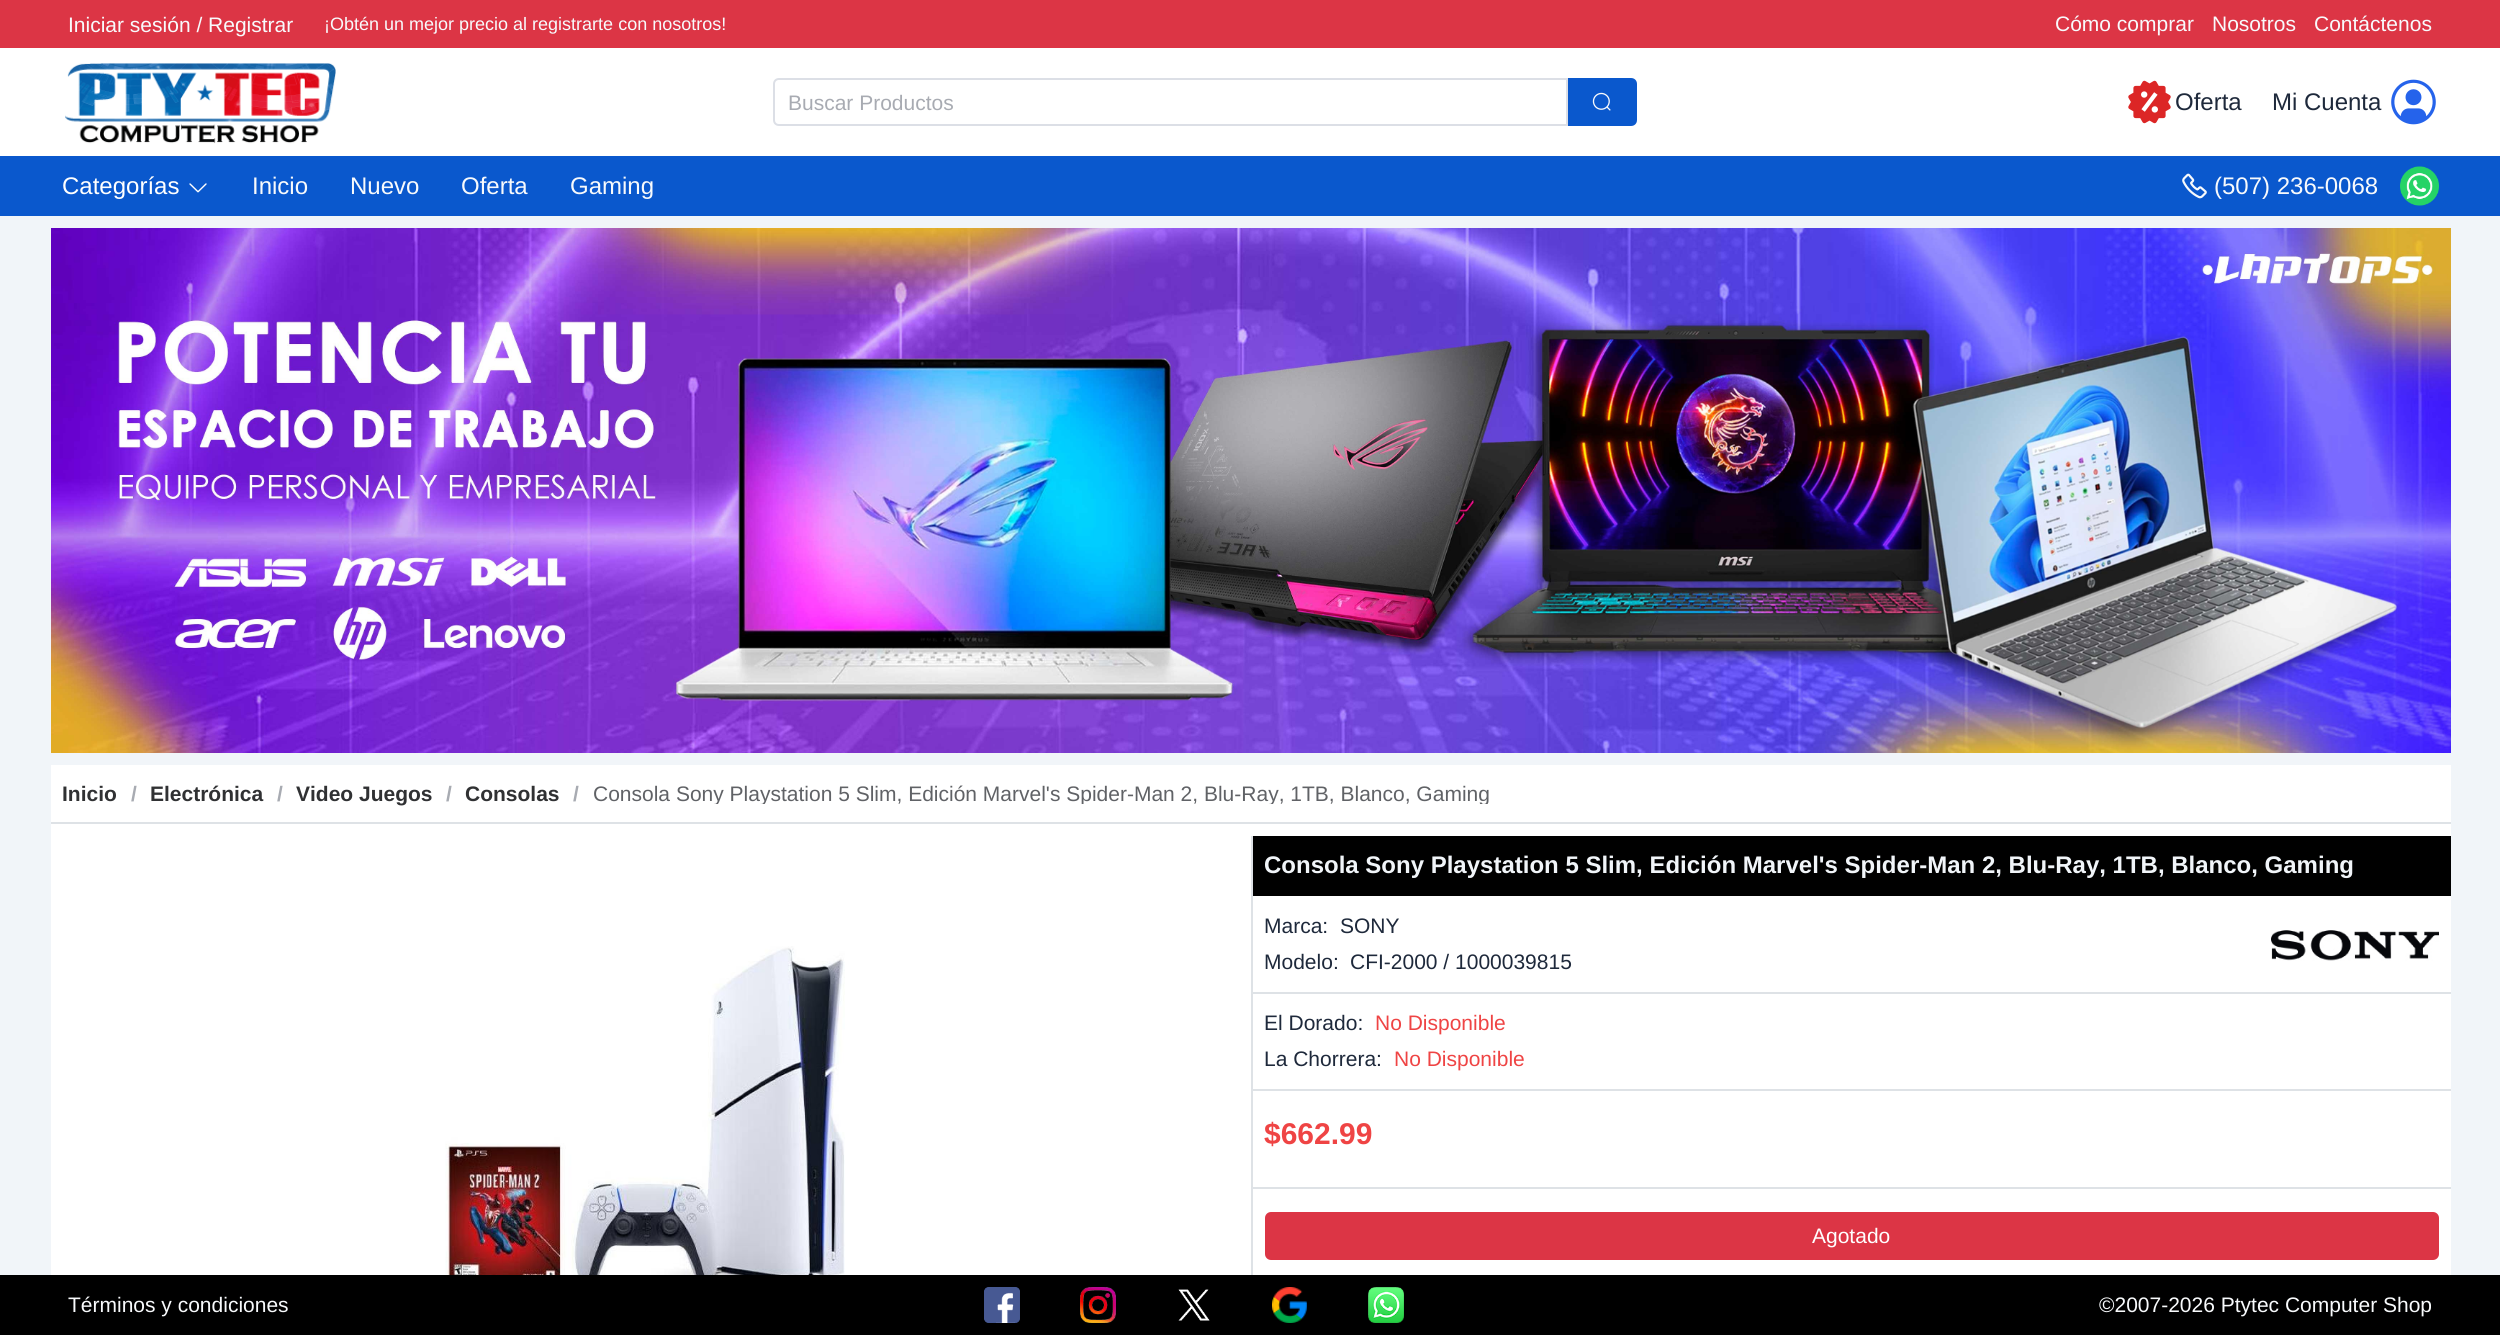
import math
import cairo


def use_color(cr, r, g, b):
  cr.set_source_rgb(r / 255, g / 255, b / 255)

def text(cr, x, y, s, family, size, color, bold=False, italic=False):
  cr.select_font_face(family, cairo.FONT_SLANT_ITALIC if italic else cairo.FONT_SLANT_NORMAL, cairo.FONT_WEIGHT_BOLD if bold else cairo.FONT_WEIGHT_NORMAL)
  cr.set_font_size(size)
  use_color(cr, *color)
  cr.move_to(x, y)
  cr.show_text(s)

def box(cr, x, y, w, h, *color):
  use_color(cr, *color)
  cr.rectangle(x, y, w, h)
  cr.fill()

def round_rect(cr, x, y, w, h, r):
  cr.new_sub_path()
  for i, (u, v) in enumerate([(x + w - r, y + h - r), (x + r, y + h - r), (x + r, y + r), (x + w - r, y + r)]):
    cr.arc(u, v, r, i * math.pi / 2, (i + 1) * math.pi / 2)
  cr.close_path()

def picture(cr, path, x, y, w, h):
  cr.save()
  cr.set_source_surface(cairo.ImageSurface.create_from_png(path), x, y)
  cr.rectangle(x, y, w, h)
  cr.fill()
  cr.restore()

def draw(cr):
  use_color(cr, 241, 245, 249)
  cr.paint()
  box(cr, 0, 0, 2500, 48, 220, 53, 69)
  box(cr, 0, 48, 2500, 108, 255, 255, 255)
  picture(cr, "img_01.png", 65, 63, 271, 81)
  cr.new_path()
  cr.move_to(779, 79)
  cr.line_to(1567, 79)
  cr.line_to(1567, 125)
  cr.line_to(779, 125)
  cr.curve_to(776, 125, 774, 123, 774, 120)
  cr.line_to(774, 84)
  cr.curve_to(774, 81, 776, 79, 779, 79)
  cr.close_path()
  use_color(cr, 220, 223, 230)
  cr.stroke()
  use_color(cr, 10, 88, 205)
  cr.new_path()
  cr.move_to(1568, 78)
  cr.line_to(1631, 78)
  cr.curve_to(1634.5, 78, 1637, 80.5, 1637, 84)
  cr.line_to(1637, 120)
  cr.curve_to(1637, 123.5, 1634.5, 126, 1631, 126)
  cr.line_to(1568, 126)
  cr.close_path()
  cr.fill()
  picture(cr, "img_02.png", 1592, 92, 19, 19)
  picture(cr, "img_03.png", 2128, 80, 43, 44)
  picture(cr, "img_04.png", 2391, 79, 45, 46)
  box(cr, 0, 156, 2500, 60, 10, 88, 205)
  picture(cr, "img_05.png", 189, 183, 18, 10)
  picture(cr, "img_06.png", 2182, 173, 25, 26)
  picture(cr, "img_07.png", 2400, 166, 39, 40)
  picture(cr, "img_08.png", 51, 228, 2400, 525)
  box(cr, 51, 765, 2400, 510, 255, 255, 255)
  box(cr, 51, 822, 2400, 2, 222, 226, 230)
  picture(cr, "img_09.png", 445, 946, 400, 329)
  box(cr, 1251, 836, 2, 439, 222, 226, 230)
  box(cr, 1253, 836, 1198, 60, 0, 0, 0)
  box(cr, 1253, 992, 1198, 2, 222, 226, 230)
  picture(cr, "img_10.png", 2271, 930, 168, 31)
  box(cr, 1253, 1089, 1198, 2, 222, 226, 230)
  box(cr, 1253, 1187, 1198, 2, 222, 226, 230)
  use_color(cr, 220, 53, 69)
  round_rect(cr, 1266, 1213, 1172, 46, 5)
  cr.fill_preserve()
  cr.stroke()
  box(cr, 0, 1275, 2500, 60, 0, 0, 0)
  picture(cr, "img_11.png", 984, 1287, 36, 36)
  picture(cr, "img_12.png", 1080, 1287, 36, 36)
  picture(cr, "img_13.png", 1178, 1289, 32, 32)
  picture(cr, "img_14.png", 1272, 1287, 35, 36)
  picture(cr, "img_15.png", 1368, 1287, 36, 36)
  text(cr, 68, 32, "Iniciar sesión / Registrar", "Liberation Sans", 21, (248, 250, 252))
  text(cr, 324, 30, "¡Obtén un mejor precio al registrarte con nosotros!", "Liberation Sans", 18, (248, 250, 252))
  text(cr, 2055, 31, "Cómo comprar", "Liberation Sans", 21, (248, 250, 252))
  text(cr, 2212, 31, "Nosotros", "Liberation Sans", 21, (248, 250, 252))
  text(cr, 2314, 31, "Contáctenos", "Liberation Sans", 21, (248, 250, 252))
  text(cr, 788, 110, "Buscar Productos", "Liberation Sans", 21, (168, 171, 178))
  text(cr, 2175, 110, "Oferta", "Liberation Sans", 24, (30, 41, 59))
  text(cr, 2272, 110, "Mi Cuenta", "Liberation Sans", 24, (30, 41, 59))
  text(cr, 62, 194, "Categorías", "Liberation Sans", 24, (255, 255, 255))
  text(cr, 252, 194, "Inicio", "Liberation Sans", 24, (248, 250, 252))
  text(cr, 350, 194, "Nuevo", "Liberation Sans", 24, (248, 250, 252))
  text(cr, 461, 194, "Oferta", "Liberation Sans", 24, (248, 250, 252))
  text(cr, 570, 194, "Gaming", "Liberation Sans", 24, (248, 250, 252))
  text(cr, 2214, 194, "(507) 236-0068", "Liberation Sans", 24, (248, 250, 252))
  text(cr, 62, 801, "Inicio", "Liberation Sans", 21, (48, 49, 51), bold=True)
  text(cr, 131, 801, "/", "Liberation Sans", 21, (168, 171, 178), bold=True)
  text(cr, 150, 801, "Electrónica", "Liberation Sans", 21, (48, 49, 51), bold=True)
  text(cr, 277, 801, "/", "Liberation Sans", 21, (168, 171, 178), bold=True)
  text(cr, 296, 801, "Video Juegos", "Liberation Sans", 21, (48, 49, 51), bold=True)
  text(cr, 446, 801, "/", "Liberation Sans", 21, (168, 171, 178), bold=True)
  text(cr, 465, 801, "Consolas", "Liberation Sans", 21, (48, 49, 51), bold=True)
  text(cr, 573, 801, "/", "Liberation Sans", 21, (168, 171, 178), bold=True)
  cr.save()
  cr.rectangle(593, 783, 897, 21)
  cr.clip()
  text(cr, 593, 801, "Consola Sony Playstation 5 Slim, Edición Marvel's Spider-Man 2, Blu-Ray, 1TB, Blanco, Gaming", "Liberation Sans", 21, (96, 98, 102))
  cr.restore()
  text(cr, 1264, 873, "Consola Sony Playstation 5 Slim, Edición Marvel's Spider-Man 2, Blu-Ray, 1TB, Blanco, Gaming", "Liberation Sans", 24, (241, 245, 249), bold=True)
  text(cr, 1264, 933, "Marca:", "Liberation Sans", 21, (30, 41, 59))
  text(cr, 1340, 933, "SONY", "Liberation Sans", 21, (30, 41, 59))
  text(cr, 1264, 969, "Modelo:", "Liberation Sans", 21, (30, 41, 59))
  text(cr, 1350, 969, "CFI-2000 / 1000039815", "Liberation Sans", 21, (30, 41, 59))
  text(cr, 1264, 1030, "El Dorado:", "Liberation Sans", 21, (30, 41, 59))
  text(cr, 1375, 1030, "No Disponible", "Liberation Sans", 21, (239, 68, 68))
  text(cr, 1264, 1066, "La Chorrera:", "Liberation Sans", 21, (30, 41, 59))
  text(cr, 1394, 1066, "No Disponible", "Liberation Sans", 21, (239, 68, 68))
  text(cr, 1264, 1144, "$662.99", "Liberation Sans", 30, (239, 68, 68), bold=True)
  text(cr, 1812, 1243, "Agotado", "Liberation Sans", 21, (255, 255, 255))
  text(cr, 68, 1312, "Términos y condiciones", "Liberation Sans", 21, (248, 250, 252))
  text(cr, 2099, 1312, "©2007-2026 Ptytec Computer Shop", "Liberation Sans", 21, (248, 250, 252))


surface = cairo.ImageSurface(cairo.FORMAT_RGB24, 2500, 1335)
cr = cairo.Context(surface)
options = cairo.FontOptions()
options.set_hint_metrics(cairo.HINT_METRICS_OFF)
options.set_hint_style(cairo.HINT_STYLE_NONE)
cr.set_font_options(options)
cr.set_miter_limit(4)
draw(cr)
surface.write_to_png("out.png")
